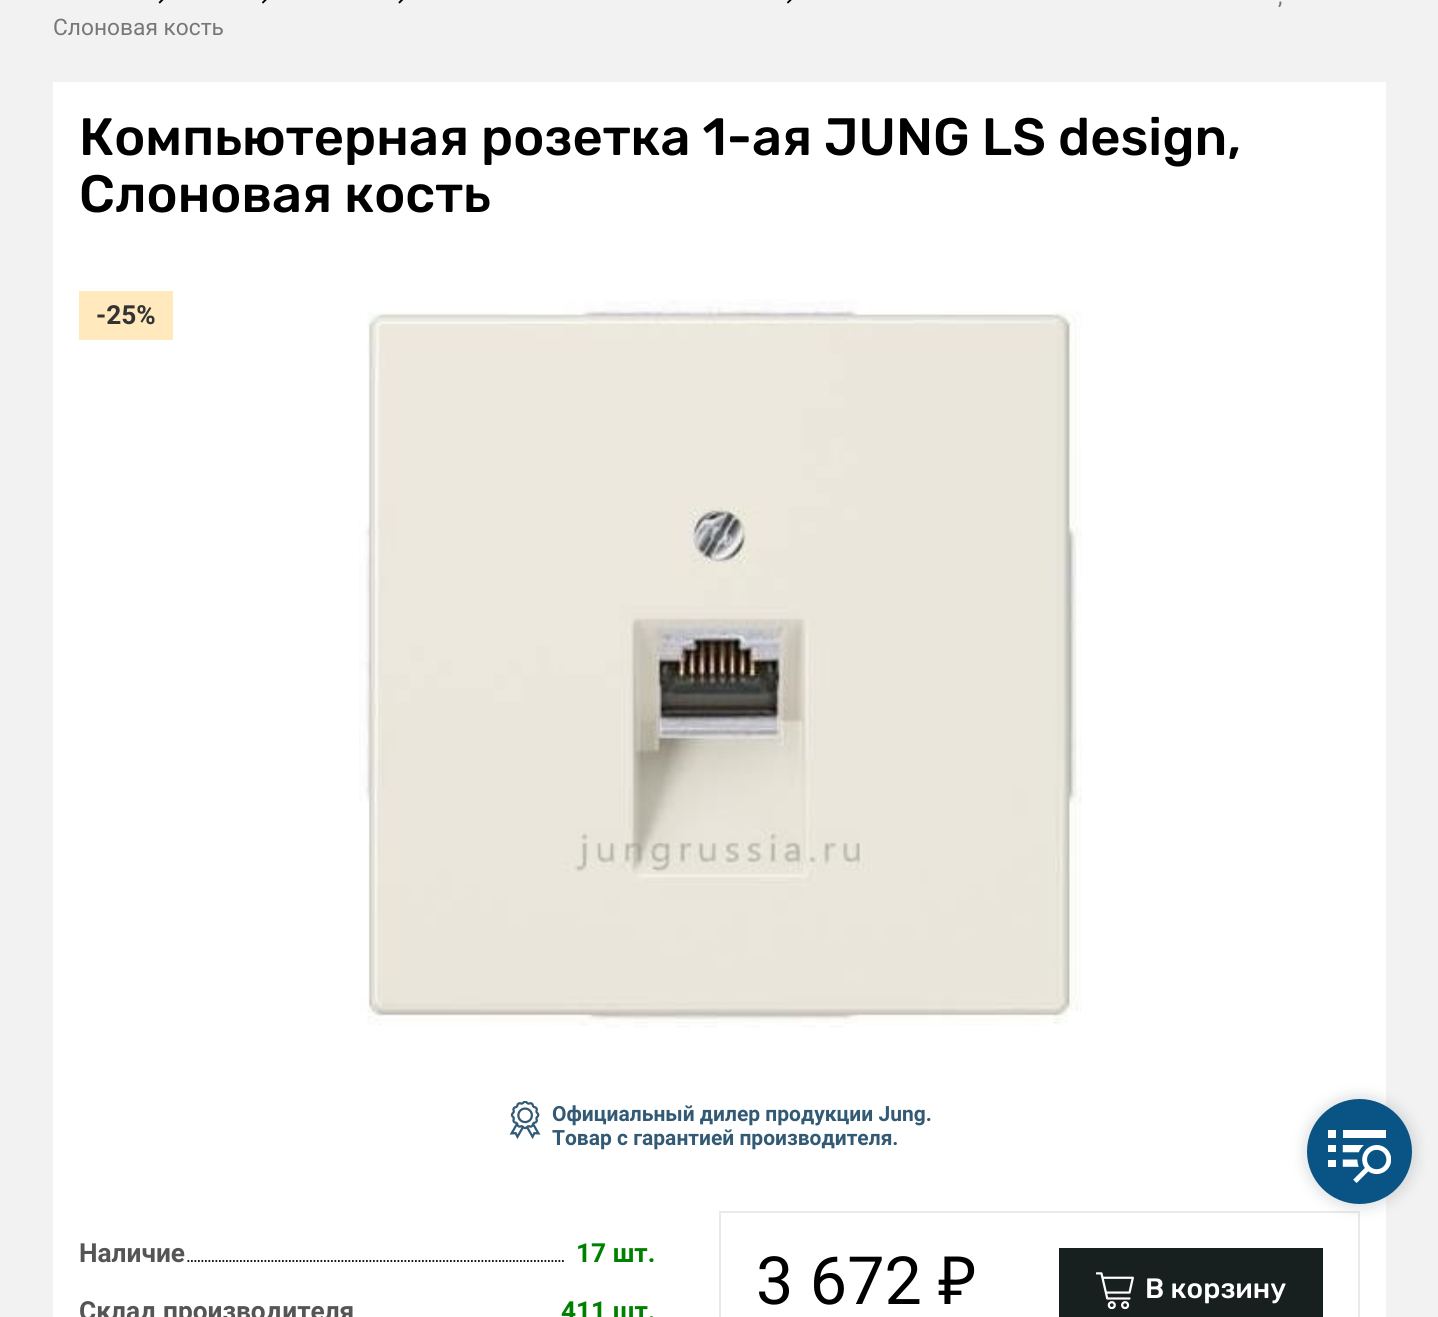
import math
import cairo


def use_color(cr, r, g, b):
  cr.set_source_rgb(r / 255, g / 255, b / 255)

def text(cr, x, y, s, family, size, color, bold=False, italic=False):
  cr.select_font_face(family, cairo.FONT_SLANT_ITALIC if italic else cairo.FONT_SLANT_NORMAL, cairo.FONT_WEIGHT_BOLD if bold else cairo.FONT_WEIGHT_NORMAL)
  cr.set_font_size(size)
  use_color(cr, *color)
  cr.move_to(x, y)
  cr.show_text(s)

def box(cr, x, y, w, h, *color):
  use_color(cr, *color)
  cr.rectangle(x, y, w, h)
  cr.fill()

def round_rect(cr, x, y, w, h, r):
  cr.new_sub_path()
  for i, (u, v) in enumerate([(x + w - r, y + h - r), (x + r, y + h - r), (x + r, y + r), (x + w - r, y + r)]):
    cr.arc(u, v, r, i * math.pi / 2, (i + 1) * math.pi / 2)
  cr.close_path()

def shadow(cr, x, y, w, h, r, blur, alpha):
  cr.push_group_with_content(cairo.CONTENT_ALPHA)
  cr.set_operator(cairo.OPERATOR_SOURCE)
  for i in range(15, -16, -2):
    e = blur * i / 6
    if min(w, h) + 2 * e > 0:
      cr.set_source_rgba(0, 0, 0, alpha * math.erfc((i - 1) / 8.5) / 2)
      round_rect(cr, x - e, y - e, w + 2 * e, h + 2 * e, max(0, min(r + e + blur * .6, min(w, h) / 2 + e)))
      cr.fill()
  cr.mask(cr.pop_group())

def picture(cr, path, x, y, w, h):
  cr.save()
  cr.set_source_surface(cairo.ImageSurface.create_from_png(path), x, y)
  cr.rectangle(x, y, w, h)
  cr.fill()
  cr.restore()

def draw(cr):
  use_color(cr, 242, 242, 242)
  cr.paint()
  picture(cr, "img_01.png", 158, 0, 6, 4)
  picture(cr, "img_02.png", 262, 0, 5, 4)
  picture(cr, "img_03.png", 398, 0, 6, 4)
  picture(cr, "img_02.png", 787, 0, 5, 4)
  box(cr, 53, 82, 1333, 1235, 255, 255, 255)
  box(cr, 79, 291, 94, 49, 255, 233, 189)
  picture(cr, "img_04.png", 359, 299, 723, 729)
  picture(cr, "img_05.png", 509, 1101, 32, 38)
  cr.new_path()
  cr.move_to(79, 1261)
  cr.line_to(654.5, 1261)
  use_color(cr, 0, 0, 0)
  cr.set_line_width(1.8)
  cr.set_dash([1.75, 1.75])
  cr.stroke()
  box(cr, 79, 1260, 107, 2, 255, 255, 255)
  box(cr, 565, 1260, 90, 2, 255, 255, 255)
  cr.rectangle(720, 1212, 639, 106)
  use_color(cr, 234, 234, 234)
  cr.set_line_width(2)
  cr.set_dash([])
  cr.stroke()
  box(cr, 1059, 1248, 264, 69, 24, 31, 31)
  picture(cr, "img_06.png", 1096, 1272, 38, 37)
  use_color(cr, 33, 44, 56)
  shadow(cr, 1304, 1096, 112, 112, 56, 7, 0.15)
  use_color(cr, 10, 84, 133)
  cr.arc(1359.5, 1151.5, 52.5, 0, 2 * math.pi)
  cr.fill()
  picture(cr, "img_07.png", 1328, 1130, 63, 53)
  text(cr, 1278, 4, ",", "Roboto", 22.75, (119, 119, 119))
  text(cr, 53, 35, "Слоновая кость", "Roboto", 22.75, (119, 119, 119))
  text(cr, 79, 155, "Компьютерная розетка 1-ая JUNG LS design,", "Rubik Light", 52.5, (0, 0, 0))
  text(cr, 79, 212, "Слоновая кость", "Rubik Light", 52.5, (0, 0, 0))
  text(cr, 96, 324, "-25%", "Roboto", 26.25, (51, 51, 51), bold=True)
  text(cr, 552, 1121, "Официальный дилер продукции Jung.", "Roboto", 21, (51, 90, 117), bold=True)
  text(cr, 552, 1145, "Товар с гарантией производителя.", "Roboto", 21, (51, 90, 117), bold=True)
  text(cr, 79, 1262, "Наличие", "Roboto", 26.25, (85, 85, 85), bold=True)
  text(cr, 576, 1262, "17 шт.", "Roboto", 26.25, (0, 128, 0), bold=True)
  text(cr, 79, 1320, "Склад производителя", "Roboto", 26.25, (85, 85, 85), bold=True)
  text(cr, 561, 1320, "411 шт.", "Roboto", 26.25, (0, 128, 0), bold=True)
  text(cr, 756, 1304, "3 672", "Roboto", 66.5, (0, 0, 0))
  text(cr, 938, 1304, "₽", "Noto Sans", 66.5, (0, 0, 0))
  text(cr, 1145, 1298, "В корзину", "Rubik Light", 28, (255, 255, 255))


surface = cairo.ImageSurface(cairo.FORMAT_RGB24, 1438, 1317)
cr = cairo.Context(surface)
options = cairo.FontOptions()
options.set_hint_metrics(cairo.HINT_METRICS_OFF)
options.set_hint_style(cairo.HINT_STYLE_NONE)
cr.set_font_options(options)
cr.set_miter_limit(4)
draw(cr)
surface.write_to_png("out.png")
